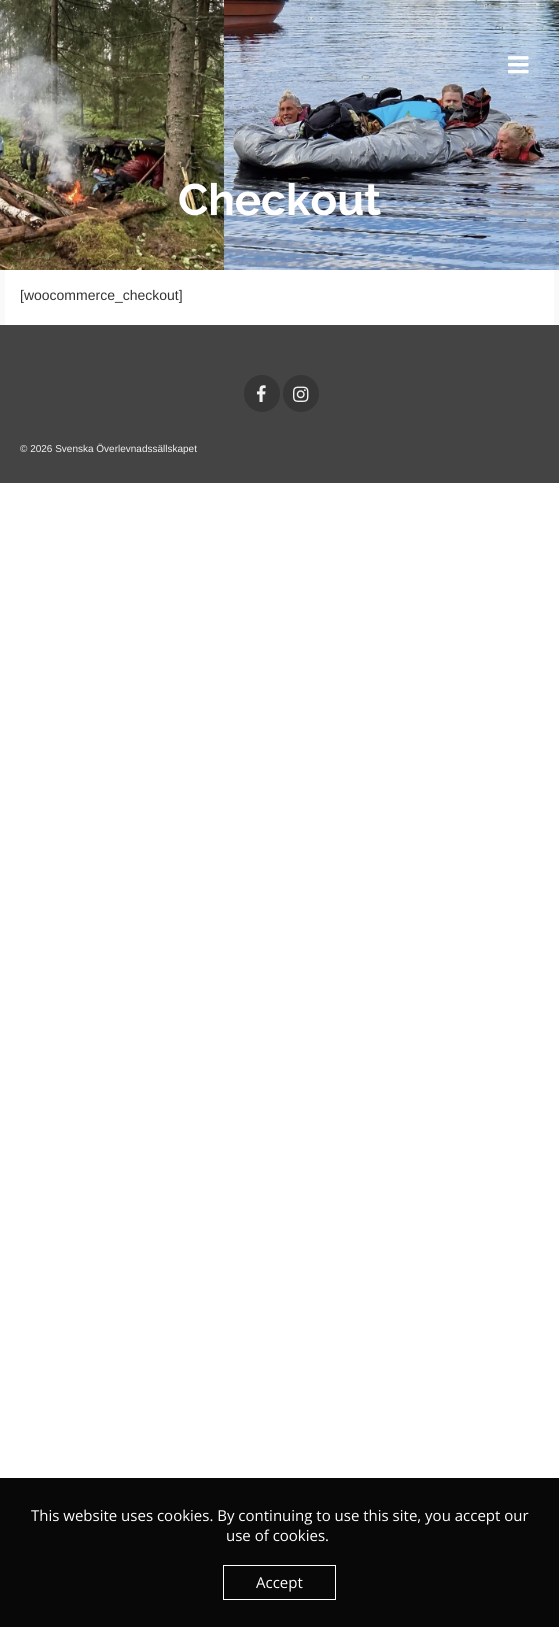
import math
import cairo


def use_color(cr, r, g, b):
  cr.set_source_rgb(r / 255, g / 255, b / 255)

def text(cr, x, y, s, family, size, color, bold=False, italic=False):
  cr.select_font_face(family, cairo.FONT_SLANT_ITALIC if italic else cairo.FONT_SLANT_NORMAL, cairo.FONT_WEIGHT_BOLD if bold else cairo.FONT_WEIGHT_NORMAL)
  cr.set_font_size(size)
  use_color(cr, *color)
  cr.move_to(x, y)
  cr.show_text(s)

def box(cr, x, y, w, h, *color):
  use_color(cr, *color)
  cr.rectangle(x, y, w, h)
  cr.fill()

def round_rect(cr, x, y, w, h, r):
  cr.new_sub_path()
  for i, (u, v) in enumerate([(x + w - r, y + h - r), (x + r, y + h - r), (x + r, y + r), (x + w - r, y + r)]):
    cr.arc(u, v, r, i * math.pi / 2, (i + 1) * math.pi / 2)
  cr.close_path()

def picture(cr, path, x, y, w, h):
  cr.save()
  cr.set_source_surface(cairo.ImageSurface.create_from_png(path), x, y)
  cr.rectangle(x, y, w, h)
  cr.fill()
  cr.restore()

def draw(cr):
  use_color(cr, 255, 255, 255)
  cr.paint()
  picture(cr, "img_02.png", 0, 0, 559, 270)
  picture(cr, "img_01.png", 508, 56, 21, 18)
  box(cr, 0, 270, 559, 55, 249, 249, 249)
  box(cr, 5, 270, 549, 55, 255, 255, 255)
  box(cr, 0, 325, 559, 158, 68, 68, 68)
  use_color(cr, 54, 54, 54)
  round_rect(cr, 244, 375, 36, 37, 18)
  cr.fill()
  picture(cr, "img_03.png", 256, 385, 10, 17)
  round_rect(cr, 283, 375, 36, 37, 18)
  cr.fill()
  picture(cr, "img_04.png", 293, 386, 16, 16)
  box(cr, 0, 1478, 559, 149, 8, 8, 8)
  cr.rectangle(223.5, 1565.5, 112, 34)
  use_color(cr, 255, 255, 255)
  cr.set_line_width(1)
  cr.stroke()
  text(cr, 178, 215, "Checkout", "Raleway", 44, (255, 255, 255), bold=True)
  text(cr, 20, 300, "[woocommerce_checkout]", "Liberation Sans", 14, (51, 51, 51))
  text(cr, 20, 452, "© 2026 Svenska Överlevnadssällskapet", "Liberation Sans", 10, (242, 242, 242))
  text(cr, 31, 1521, "This website uses cookies. By continuing to use this site, you accept our", "Open Sans", 15, (255, 255, 255))
  text(cr, 226, 1541, "use of cookies.", "Open Sans", 15, (255, 255, 255))
  text(cr, 256, 1588, "Accept", "Open Sans", 15, (255, 255, 255))


surface = cairo.ImageSurface(cairo.FORMAT_RGB24, 559, 1627)
cr = cairo.Context(surface)
options = cairo.FontOptions()
options.set_hint_metrics(cairo.HINT_METRICS_OFF)
options.set_hint_style(cairo.HINT_STYLE_NONE)
cr.set_font_options(options)
cr.set_miter_limit(4)
draw(cr)
surface.write_to_png("out.png")
